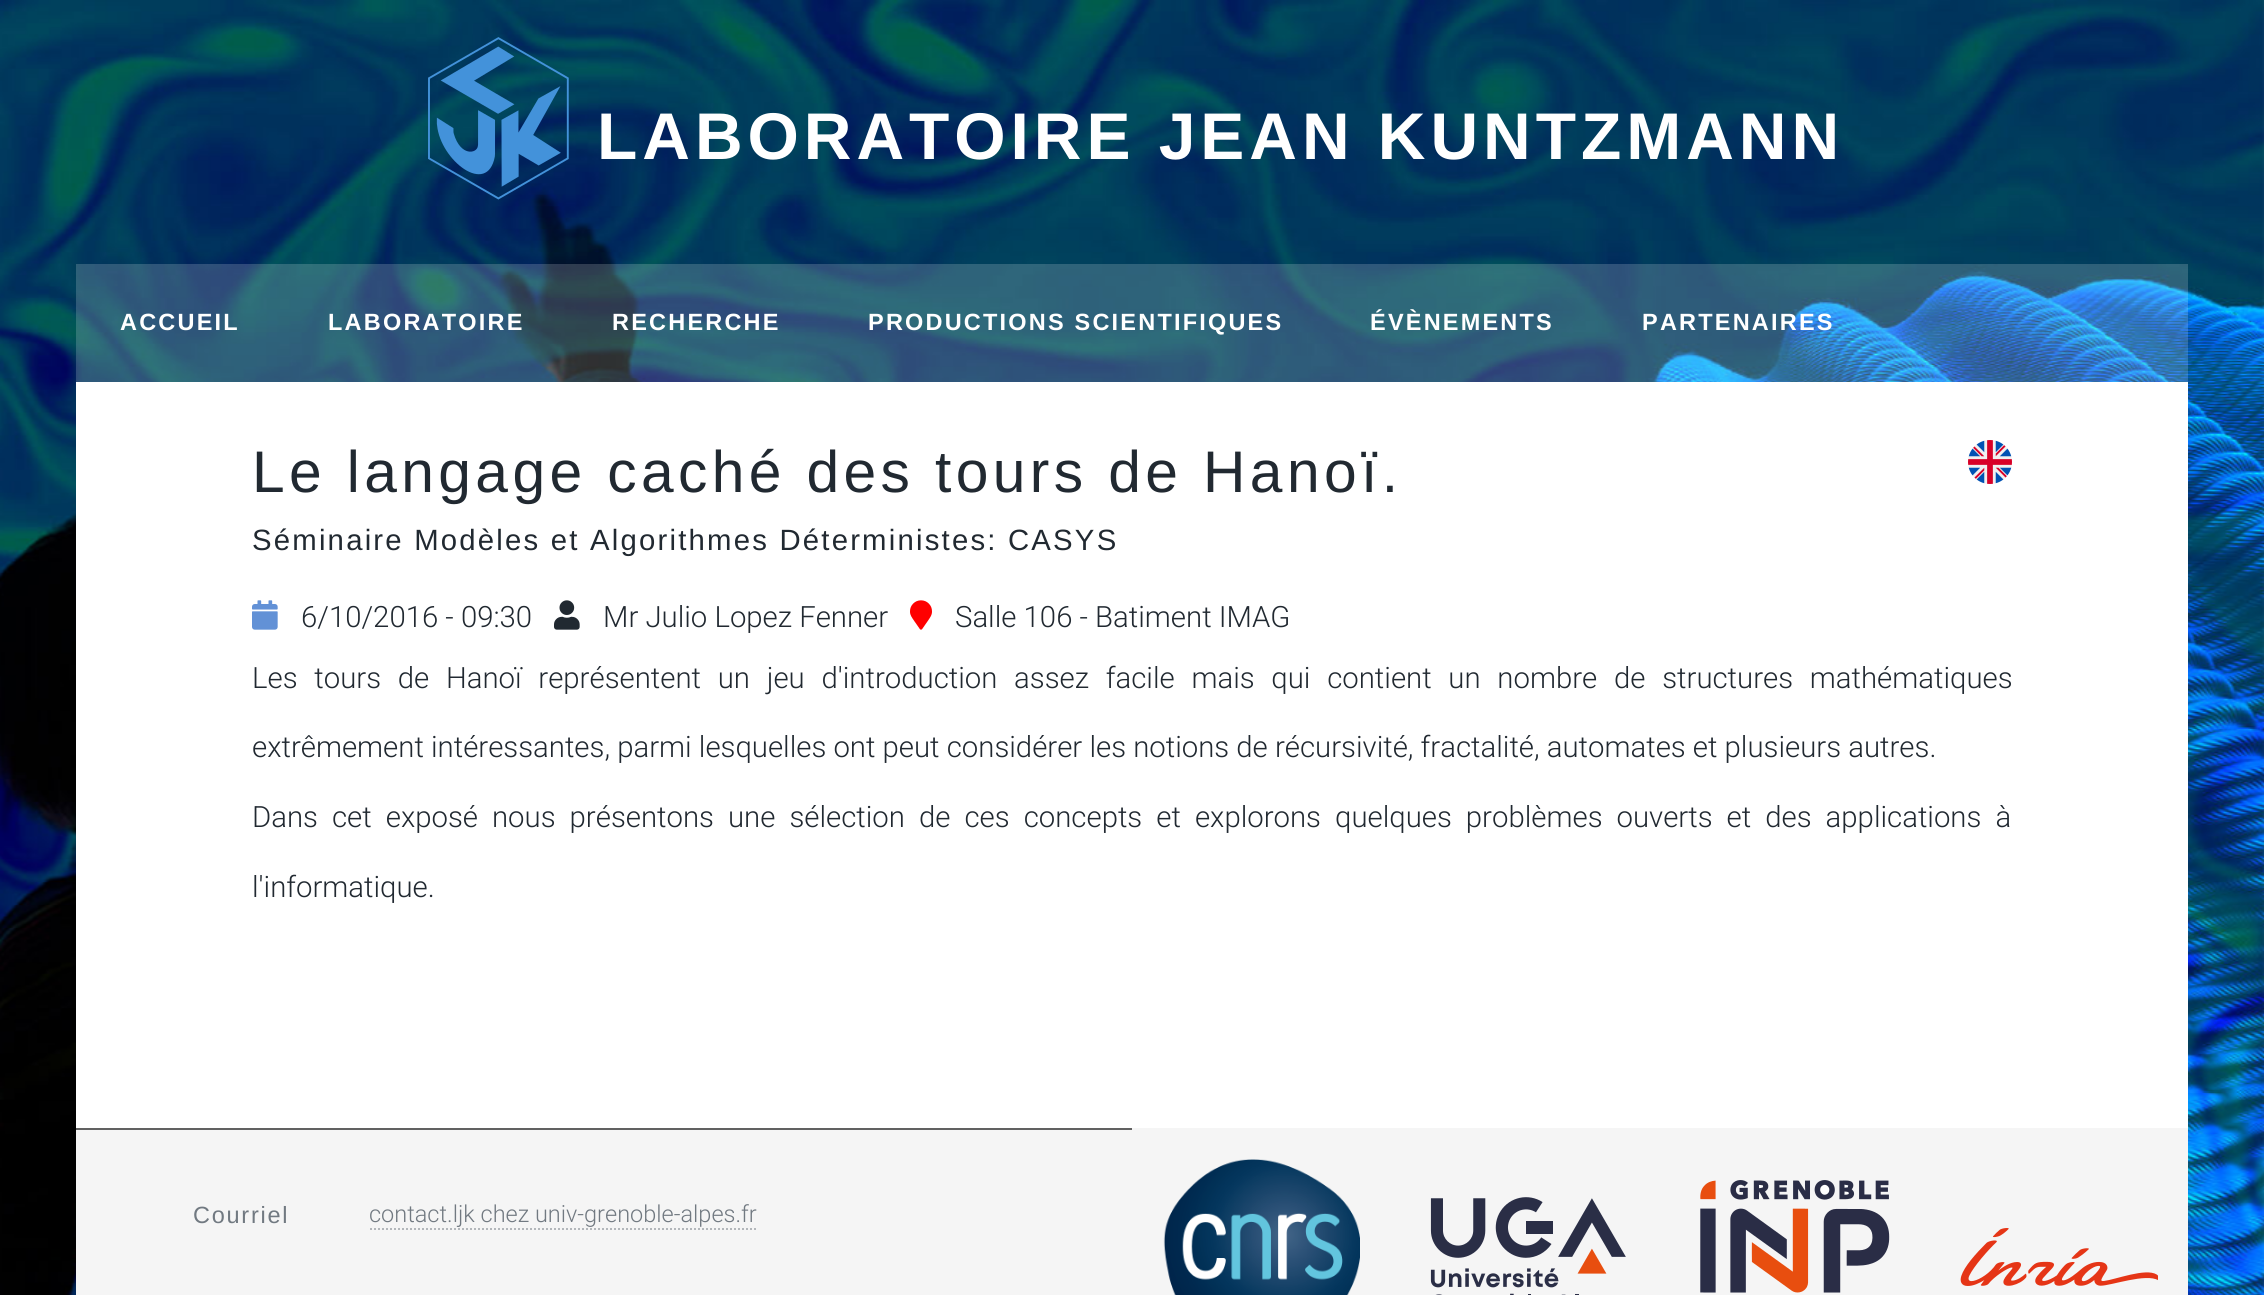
import math
import cairo


def use_color(cr, r, g, b):
  cr.set_source_rgb(r / 255, g / 255, b / 255)

def text(cr, x, y, s, family, size, color, bold=False, italic=False):
  cr.select_font_face(family, cairo.FONT_SLANT_ITALIC if italic else cairo.FONT_SLANT_NORMAL, cairo.FONT_WEIGHT_BOLD if bold else cairo.FONT_WEIGHT_NORMAL)
  cr.set_font_size(size)
  use_color(cr, *color)
  cr.move_to(x, y)
  cr.show_text(s)

def spaced_text(cr, x, y, s, letter, word):
  cr.move_to(x, y)
  for ch in s:
    cr.show_text(ch)
    cr.rel_move_to(letter + word * (ch == ' '), 0)

def box(cr, x, y, w, h, *color):
  use_color(cr, *color)
  cr.rectangle(x, y, w, h)
  cr.fill()

def picture(cr, path, x, y, w, h):
  cr.save()
  cr.set_source_surface(cairo.ImageSurface.create_from_png(path), x, y)
  cr.rectangle(x, y, w, h)
  cr.fill()
  cr.restore()

def draw(cr):
  use_color(cr, 255, 255, 255)
  cr.paint()
  picture(cr, "img_01.png", 0, 0, 2264, 1295)
  picture(cr, "img_02.png", 428, 37, 141, 163)
  cr.set_source_rgba(1, 1, 1, 0.18)
  cr.rectangle(76, 264, 2112, 118)
  cr.fill()
  box(cr, 76, 382, 2112, 746, 255, 255, 255)
  picture(cr, "img_03.png", 1968, 440, 44, 44)
  picture(cr, "img_04.png", 252, 600, 26, 30)
  picture(cr, "img_05.png", 554, 600, 26, 30)
  picture(cr, "img_06.png", 910, 600, 22, 30)
  box(cr, 76, 1128, 2112, 167, 245, 245, 245)
  box(cr, 76, 1128, 1056, 2, 97, 97, 97)
  cr.new_path()
  cr.move_to(370, 1229)
  cr.line_to(474, 1229)
  use_color(cr, 179, 183, 187)
  cr.set_dash([2, 2])
  cr.stroke()
  cr.new_path()
  cr.move_to(474, 1229)
  cr.line_to(534, 1229)
  cr.stroke()
  cr.new_path()
  cr.move_to(534, 1229)
  cr.line_to(756, 1229)
  cr.stroke()
  picture(cr, "img_07.png", 1163, 1159, 197, 136)
  picture(cr, "img_08.png", 1430, 1197, 196, 98)
  picture(cr, "img_09.png", 1700, 1180, 190, 113)
  picture(cr, "img_10.png", 1960, 1228, 198, 58)
  cr.select_font_face("Liberation Sans", cairo.FONT_SLANT_NORMAL, cairo.FONT_WEIGHT_BOLD)
  cr.set_font_size(66)
  use_color(cr, 255, 255, 255)
  spaced_text(cr, 597, 159, "LABORATOIRE JEAN KUNTZMANN", 4.95, 0)
  cr.set_font_size(23.5)
  spaced_text(cr, 120, 330, "ACCUEIL", 2.2, 0)
  spaced_text(cr, 328, 330, "LABORATOIRE", 2.2, 0)
  spaced_text(cr, 612, 330, "RECHERCHE", 2.2, 0)
  spaced_text(cr, 868, 330, "PRODUCTIONS SCIENTIFIQUES", 2.2, 0)
  spaced_text(cr, 1370, 330, "ÉVÈNEMENTS", 2.2, 0)
  spaced_text(cr, 1642, 330, "PARTENAIRES", 2.2, 0)
  cr.select_font_face("Liberation Sans")
  cr.set_font_size(58.7)
  use_color(cr, 33, 41, 49)
  spaced_text(cr, 252, 492, "Le langage caché des tours de Hanoï.", 4.4, 0)
  cr.set_font_size(29.33)
  spaced_text(cr, 252, 550, "Séminaire Modèles et Algorithmes Déterministes: CASYS", 2.2, 0)
  text(cr, 301, 627, "6/10/2016 - 09:30", "Roboto Light", 29.33, (33, 41, 49))
  text(cr, 603, 627, "Mr Julio Lopez Fenner", "Roboto Light", 29.33, (33, 41, 49))
  text(cr, 955, 627, "Salle 106 - Batiment IMAG", "Roboto Light", 29.33, (33, 41, 49))
  spaced_text(cr, 252, 688, "Les tours de Hanoï représentent un jeu d'introduction assez facile mais qui contient un nombre de structures mathématiques", 0, 9.6)
  text(cr, 252, 757, "extrêmement intéressantes, parmi lesquelles ont peut considérer les notions de récursivité, fractalité, automates et plusieurs autres.", "Roboto Light", 29.33, (33, 41, 49))
  spaced_text(cr, 252, 827, "Dans cet exposé nous présentons une sélection de ces concepts et explorons quelques problèmes ouverts et des applications à", 0, 6.9)
  text(cr, 252, 897, "l'informatique.", "Roboto Light", 29.33, (33, 41, 49))
  cr.select_font_face("Liberation Sans")
  cr.set_font_size(23.5)
  use_color(cr, 113, 121, 129)
  spaced_text(cr, 193, 1223, "Courriel", 1.75, 0)
  text(cr, 369, 1222, "contact.ljk chez univ-grenoble-alpes.fr", "Roboto Light", 23.5, (113, 121, 129))


surface = cairo.ImageSurface(cairo.FORMAT_RGB24, 2264, 1295)
cr = cairo.Context(surface)
options = cairo.FontOptions()
options.set_hint_metrics(cairo.HINT_METRICS_OFF)
options.set_hint_style(cairo.HINT_STYLE_NONE)
cr.set_font_options(options)
cr.set_miter_limit(4)
draw(cr)
surface.write_to_png("out.png")
